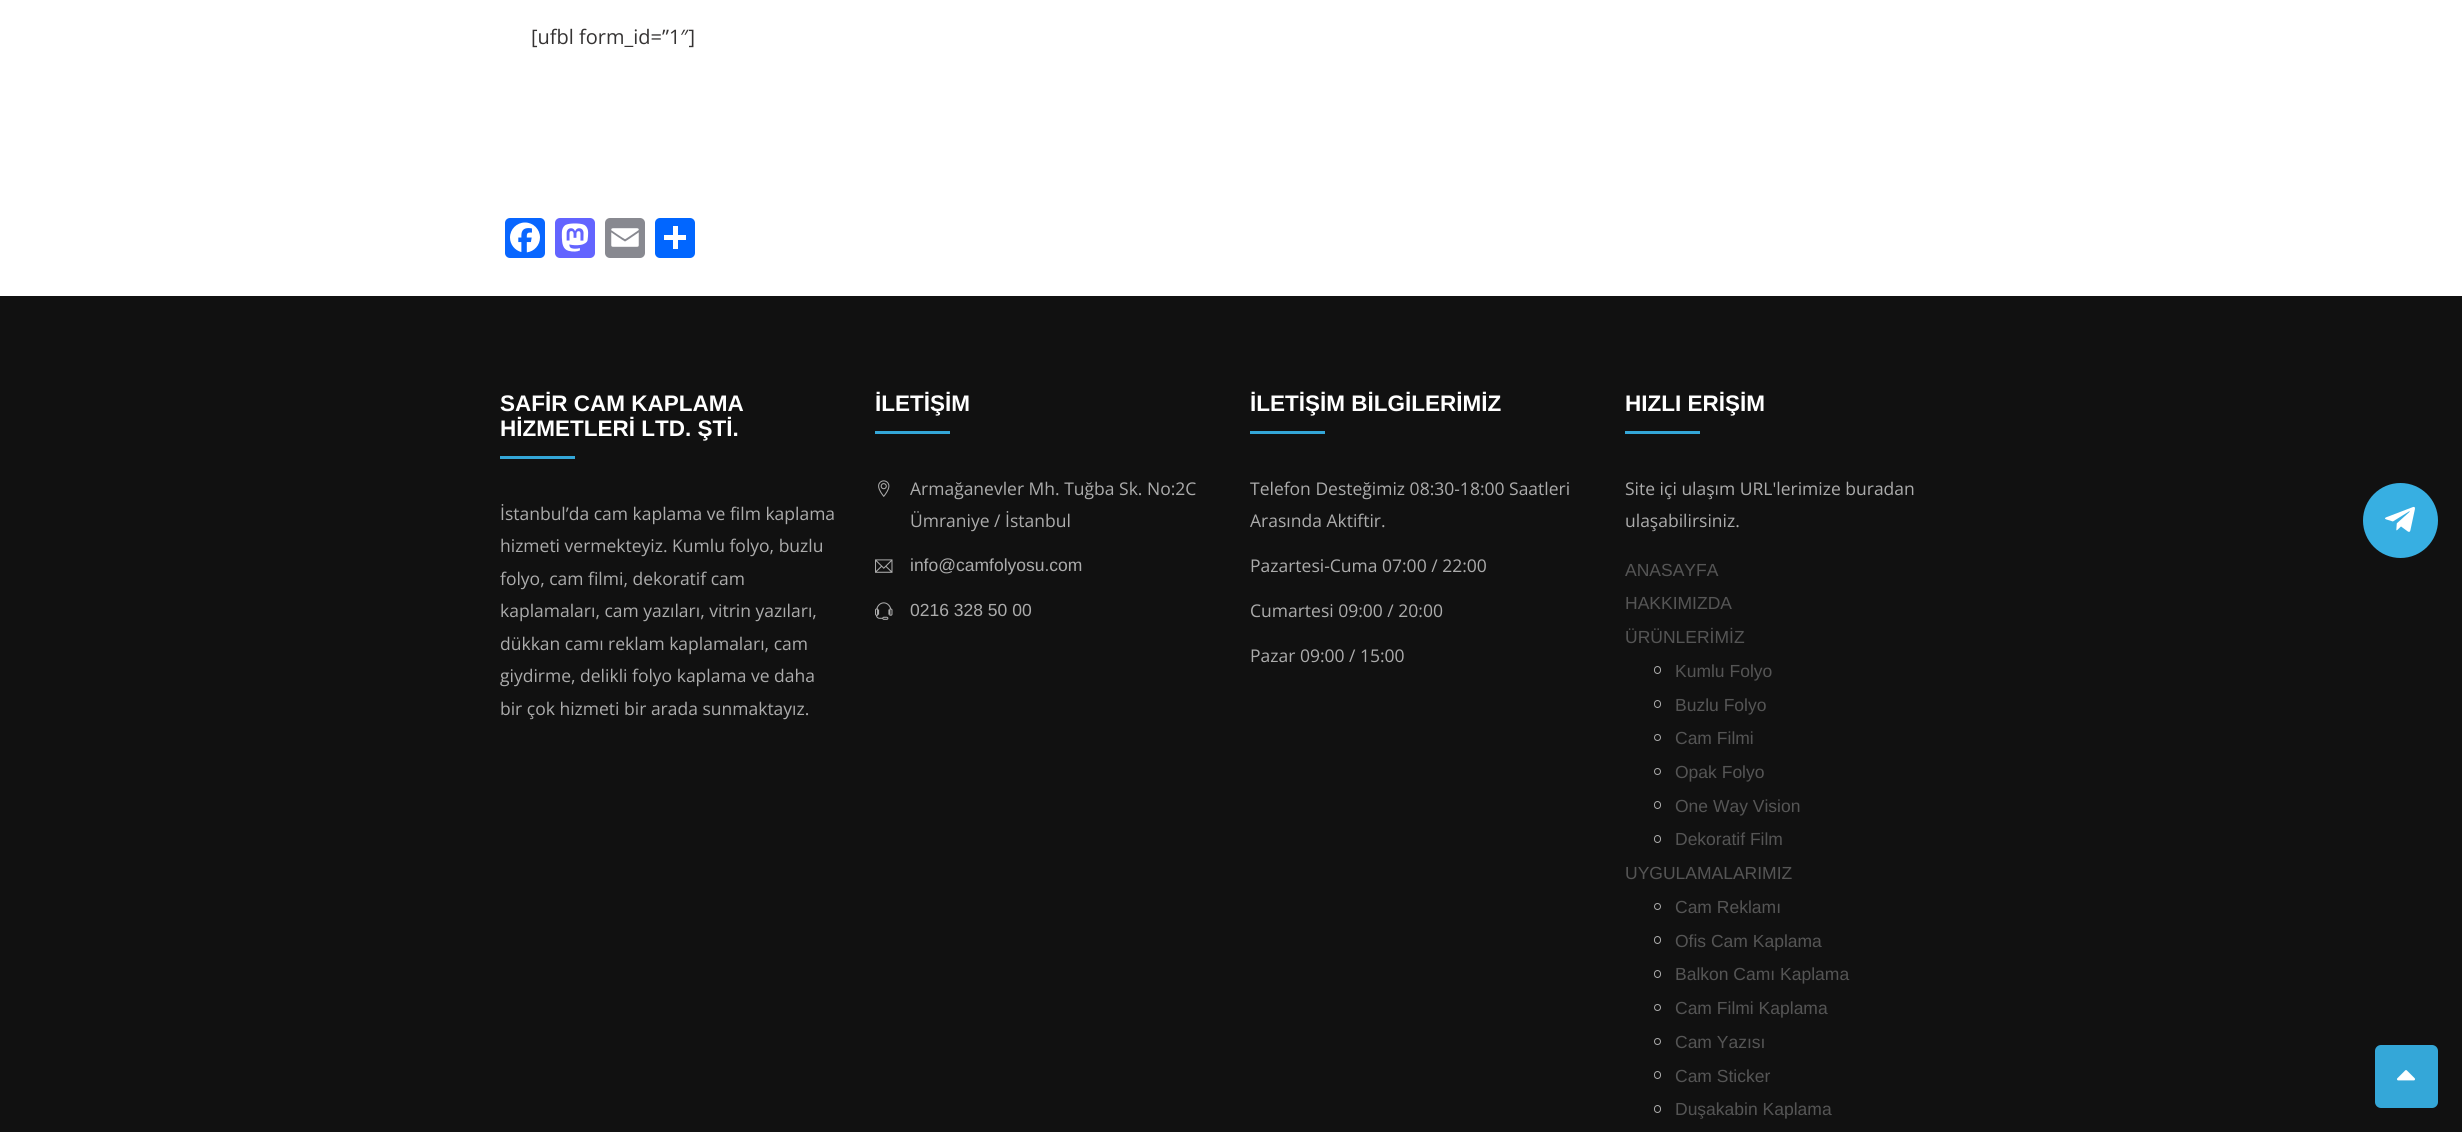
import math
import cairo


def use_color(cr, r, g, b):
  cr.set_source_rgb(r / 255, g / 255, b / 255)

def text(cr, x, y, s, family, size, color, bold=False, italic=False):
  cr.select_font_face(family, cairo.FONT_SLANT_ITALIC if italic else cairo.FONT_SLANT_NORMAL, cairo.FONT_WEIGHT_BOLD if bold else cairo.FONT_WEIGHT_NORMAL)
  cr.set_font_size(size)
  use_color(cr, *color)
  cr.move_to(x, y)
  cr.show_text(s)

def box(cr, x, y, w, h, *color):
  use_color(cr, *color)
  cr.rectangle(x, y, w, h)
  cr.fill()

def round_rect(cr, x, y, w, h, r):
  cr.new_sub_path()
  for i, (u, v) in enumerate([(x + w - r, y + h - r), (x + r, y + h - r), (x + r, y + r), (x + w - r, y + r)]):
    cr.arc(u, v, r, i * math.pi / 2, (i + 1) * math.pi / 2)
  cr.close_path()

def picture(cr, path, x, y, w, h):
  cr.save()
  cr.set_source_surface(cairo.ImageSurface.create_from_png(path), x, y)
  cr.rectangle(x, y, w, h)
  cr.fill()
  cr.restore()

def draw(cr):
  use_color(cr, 255, 255, 255)
  cr.paint()
  use_color(cr, 8, 102, 255)
  round_rect(cr, 505, 218, 40, 40, 5)
  cr.fill()
  picture(cr, "img_01.png", 510, 222, 30, 31)
  use_color(cr, 99, 100, 255)
  round_rect(cr, 555, 218, 40, 40, 5)
  cr.fill()
  picture(cr, "img_02.png", 561, 223, 28, 29)
  use_color(cr, 136, 137, 144)
  round_rect(cr, 605, 218, 40, 40, 5)
  cr.fill()
  picture(cr, "img_03.png", 611, 228, 28, 19)
  use_color(cr, 1, 102, 255)
  round_rect(cr, 655, 218, 40, 40, 5)
  cr.fill()
  box(cr, 673, 226, 5, 23, 255, 255, 255)
  box(cr, 664, 235, 22, 5, 255, 255, 255)
  box(cr, 0, 296, 2462, 836, 17, 17, 17)
  box(cr, 500, 456, 75, 3, 52, 167, 216)
  box(cr, 875, 431, 75, 3, 52, 167, 216)
  picture(cr, "img_04.png", 878, 480, 12, 17)
  picture(cr, "img_05.png", 875, 559, 18, 14)
  picture(cr, "img_06.png", 875, 602, 18, 18)
  box(cr, 1250, 431, 75, 3, 52, 167, 216)
  box(cr, 1625, 431, 75, 3, 52, 167, 216)
  round_rect(cr, 1654.5, 666.5, 6, 7, 3)
  use_color(cr, 172, 172, 172)
  cr.set_line_width(1)
  cr.stroke()
  round_rect(cr, 1654.5, 700.5, 6, 7, 3)
  cr.stroke()
  cr.arc(1657.5, 737.5, 3, 0, 2 * math.pi)
  cr.stroke()
  cr.arc(1657.5, 771.5, 3, 0, 2 * math.pi)
  cr.stroke()
  round_rect(cr, 1654.5, 801.5, 6, 7, 3)
  cr.stroke()
  round_rect(cr, 1654.5, 835.5, 6, 7, 3)
  cr.stroke()
  cr.arc(1657.5, 906.5, 3, 0, 2 * math.pi)
  cr.stroke()
  round_rect(cr, 1654.5, 936.5, 6, 7, 3)
  cr.stroke()
  round_rect(cr, 1654.5, 970.5, 6, 7, 3)
  cr.stroke()
  cr.arc(1657.5, 1007.5, 3, 0, 2 * math.pi)
  cr.stroke()
  cr.arc(1657.5, 1041.5, 3, 0, 2 * math.pi)
  cr.stroke()
  round_rect(cr, 1654.5, 1071.5, 6, 7, 3)
  cr.stroke()
  round_rect(cr, 1654.5, 1105.5, 6, 7, 3)
  cr.stroke()
  use_color(cr, 52, 167, 216)
  round_rect(cr, 2375, 1045, 63, 63, 6)
  cr.fill()
  picture(cr, "img_07.png", 2397, 1070, 18, 11)
  use_color(cr, 55, 175, 226)
  cr.arc(2400.5, 520.5, 37.5, 0, 2 * math.pi)
  cr.fill()
  picture(cr, "img_08.png", 2385, 506, 30, 26)
  text(cr, 531, 44, "[ufbl form_id=”1″]", "Open Sans", 20, (53, 51, 51))
  text(cr, 500, 411, "SAFİR CAM KAPLAMA", "Liberation Sans", 22.5, (255, 255, 255), bold=True)
  text(cr, 500, 436, "HİZMETLERİ LTD. ŞTİ.", "Liberation Sans", 22.5, (255, 255, 255), bold=True)
  text(cr, 500, 520, "İstanbul’da cam kaplama ve film kaplama", "Open Sans", 17.5, (172, 172, 172))
  text(cr, 500, 552, "hizmeti vermekteyiz. Kumlu folyo, buzlu", "Open Sans", 17.5, (172, 172, 172))
  text(cr, 500, 585, "folyo, cam filmi, dekoratif cam", "Open Sans", 17.5, (172, 172, 172))
  text(cr, 500, 617, "kaplamaları, cam yazıları, vitrin yazıları,", "Open Sans", 17.5, (172, 172, 172))
  text(cr, 500, 650, "dükkan camı reklam kaplamaları, cam", "Open Sans", 17.5, (172, 172, 172))
  text(cr, 500, 682, "giydirme, delikli folyo kaplama ve daha", "Open Sans", 17.5, (172, 172, 172))
  text(cr, 500, 715, "bir çok hizmeti bir arada sunmaktayız.", "Open Sans", 17.5, (172, 172, 172))
  text(cr, 875, 411, "İLETİŞİM", "Liberation Sans", 22.5, (255, 255, 255), bold=True)
  text(cr, 910, 495, "Armağanevler Mh. Tuğba Sk. No:2C", "Open Sans", 17.5, (172, 172, 172))
  text(cr, 910, 527, "Ümraniye / İstanbul", "Open Sans", 17.5, (172, 172, 172))
  text(cr, 910, 571, "info@camfolyosu.com", "Liberation Sans", 17.5, (172, 172, 172))
  text(cr, 910, 616, "0216 328 50 00", "Liberation Sans", 17.5, (172, 172, 172))
  text(cr, 1250, 411, "İLETİŞİM BİLGİLERİMİZ", "Liberation Sans", 22.5, (255, 255, 255), bold=True)
  text(cr, 1250, 495, "Telefon Desteğimiz 08:30-18:00 Saatleri", "Open Sans", 17.5, (172, 172, 172))
  text(cr, 1250, 527, "Arasında Aktiftir.", "Open Sans", 17.5, (172, 172, 172))
  text(cr, 1250, 572, "Pazartesi-Cuma 07:00 / 22:00", "Open Sans", 17.5, (172, 172, 172))
  text(cr, 1250, 617, "Cumartesi 09:00 / 20:00", "Open Sans", 17.5, (172, 172, 172))
  text(cr, 1250, 662, "Pazar 09:00 / 15:00", "Open Sans", 17.5, (172, 172, 172))
  text(cr, 1625, 411, "HIZLI ERİŞİM", "Liberation Sans", 22.5, (255, 255, 255), bold=True)
  text(cr, 1625, 495, "Site içi ulaşım URL'lerimize buradan", "Open Sans", 17.5, (172, 172, 172))
  text(cr, 1625, 527, "ulaşabilirsiniz.", "Open Sans", 17.5, (172, 172, 172))
  text(cr, 1625, 576, "ANASAYFA", "Liberation Sans", 17.5, (85, 85, 85))
  text(cr, 1625, 609, "HAKKIMIZDA", "Liberation Sans", 17.5, (85, 85, 85))
  text(cr, 1625, 643, "ÜRÜNLERİMİZ", "Liberation Sans", 17.5, (85, 85, 85))
  text(cr, 1675, 677, "Kumlu Folyo", "Liberation Sans", 17.5, (85, 85, 85))
  text(cr, 1675, 711, "Buzlu Folyo", "Liberation Sans", 17.5, (85, 85, 85))
  text(cr, 1675, 744, "Cam Filmi", "Liberation Sans", 17.5, (85, 85, 85))
  text(cr, 1675, 778, "Opak Folyo", "Liberation Sans", 17.5, (85, 85, 85))
  text(cr, 1675, 812, "One Way Vision", "Liberation Sans", 17.5, (85, 85, 85))
  text(cr, 1675, 845, "Dekoratif Film", "Liberation Sans", 17.5, (85, 85, 85))
  text(cr, 1625, 879, "UYGULAMALARIMIZ", "Liberation Sans", 17.5, (85, 85, 85))
  text(cr, 1675, 913, "Cam Reklamı", "Liberation Sans", 17.5, (85, 85, 85))
  text(cr, 1675, 947, "Ofis Cam Kaplama", "Liberation Sans", 17.5, (85, 85, 85))
  text(cr, 1675, 980, "Balkon Camı Kaplama", "Liberation Sans", 17.5, (85, 85, 85))
  text(cr, 1675, 1014, "Cam Filmi Kaplama", "Liberation Sans", 17.5, (85, 85, 85))
  text(cr, 1675, 1048, "Cam Yazısı", "Liberation Sans", 17.5, (85, 85, 85))
  text(cr, 1675, 1082, "Cam Sticker", "Liberation Sans", 17.5, (85, 85, 85))
  text(cr, 1675, 1115, "Duşakabin Kaplama", "Liberation Sans", 17.5, (85, 85, 85))


surface = cairo.ImageSurface(cairo.FORMAT_RGB24, 2462, 1132)
cr = cairo.Context(surface)
options = cairo.FontOptions()
options.set_hint_metrics(cairo.HINT_METRICS_OFF)
options.set_hint_style(cairo.HINT_STYLE_NONE)
cr.set_font_options(options)
cr.set_miter_limit(4)
draw(cr)
surface.write_to_png("out.png")
